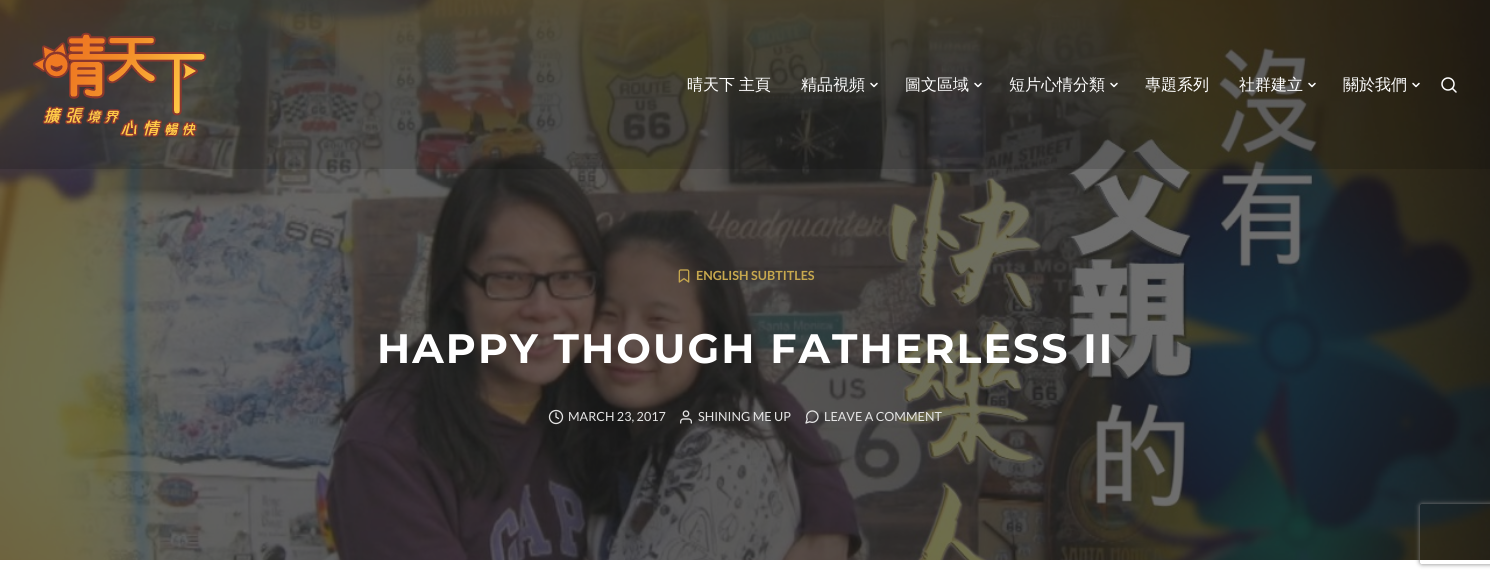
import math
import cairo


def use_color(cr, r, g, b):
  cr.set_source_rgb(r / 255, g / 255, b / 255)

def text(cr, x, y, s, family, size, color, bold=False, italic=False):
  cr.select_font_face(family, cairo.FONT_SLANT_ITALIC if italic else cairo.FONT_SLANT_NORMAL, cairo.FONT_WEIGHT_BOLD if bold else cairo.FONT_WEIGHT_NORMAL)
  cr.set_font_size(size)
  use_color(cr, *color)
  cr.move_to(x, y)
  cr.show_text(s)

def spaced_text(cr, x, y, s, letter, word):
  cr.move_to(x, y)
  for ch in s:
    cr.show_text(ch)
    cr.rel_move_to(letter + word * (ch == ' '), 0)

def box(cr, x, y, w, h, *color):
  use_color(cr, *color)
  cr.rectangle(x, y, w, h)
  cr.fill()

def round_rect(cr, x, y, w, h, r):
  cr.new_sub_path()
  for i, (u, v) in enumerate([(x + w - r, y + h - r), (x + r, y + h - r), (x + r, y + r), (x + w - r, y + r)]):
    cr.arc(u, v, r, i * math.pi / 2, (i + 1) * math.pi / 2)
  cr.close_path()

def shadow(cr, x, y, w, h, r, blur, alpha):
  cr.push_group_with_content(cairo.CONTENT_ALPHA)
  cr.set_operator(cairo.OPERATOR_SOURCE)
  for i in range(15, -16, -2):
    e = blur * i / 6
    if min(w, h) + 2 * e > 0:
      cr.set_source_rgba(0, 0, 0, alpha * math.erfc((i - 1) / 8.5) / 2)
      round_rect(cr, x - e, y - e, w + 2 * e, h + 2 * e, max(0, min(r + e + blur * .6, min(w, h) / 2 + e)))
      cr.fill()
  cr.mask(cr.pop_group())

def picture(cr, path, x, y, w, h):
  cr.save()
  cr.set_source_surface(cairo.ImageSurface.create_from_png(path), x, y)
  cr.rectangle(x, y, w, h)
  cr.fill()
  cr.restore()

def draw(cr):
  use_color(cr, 255, 255, 255)
  cr.paint()
  box(cr, 0, 0, 1490, 560, 33, 33, 33)
  picture(cr, "img_02.png", 0, 0, 1490, 560)
  cr.set_source_rgba(0, 0, 0, 0.15)
  cr.rectangle(0, 0, 1490, 169)
  cr.fill()
  picture(cr, "img_01.png", 32, 32, 175, 105)
  cr.new_path()
  cr.move_to(871, 83.5)
  cr.line_to(874, 86.5)
  cr.line_to(877, 83.5)
  use_color(cr, 255, 255, 255)
  cr.set_line_width(1.5)
  cr.set_line_cap(cairo.LINE_CAP_ROUND)
  cr.set_line_join(cairo.LINE_JOIN_ROUND)
  cr.stroke()
  cr.new_path()
  cr.move_to(975, 83.5)
  cr.line_to(978, 86.5)
  cr.line_to(981, 83.5)
  cr.stroke()
  cr.new_path()
  cr.move_to(1111, 83.5)
  cr.line_to(1114, 86.5)
  cr.line_to(1117, 83.5)
  cr.stroke()
  cr.new_path()
  cr.move_to(1309, 83.5)
  cr.line_to(1312, 86.5)
  cr.line_to(1315, 83.5)
  cr.stroke()
  cr.new_path()
  cr.move_to(1413, 83.5)
  cr.line_to(1416, 86.5)
  cr.line_to(1419, 83.5)
  cr.stroke()
  cr.arc(1448, 84, 6, 0, 2 * math.pi)
  cr.set_line_cap(cairo.LINE_CAP_BUTT)
  cr.set_line_join(cairo.LINE_JOIN_MITER)
  cr.stroke()
  cr.new_path()
  cr.move_to(1456, 92)
  cr.line_to(1452.5, 88.5)
  cr.set_line_cap(cairo.LINE_CAP_ROUND)
  cr.set_line_join(cairo.LINE_JOIN_ROUND)
  cr.stroke()
  picture(cr, "img_03.png", 678, 269, 12, 14)
  cr.arc(556, 417, 6.5, 0, 2 * math.pi)
  use_color(cr, 229, 229, 229)
  cr.set_line_width(1.3)
  cr.set_line_cap(cairo.LINE_CAP_BUTT)
  cr.set_line_join(cairo.LINE_JOIN_MITER)
  cr.stroke()
  cr.new_path()
  cr.move_to(556, 413)
  cr.line_to(556, 417)
  cr.line_to(558.5, 418.5)
  cr.set_line_cap(cairo.LINE_CAP_ROUND)
  cr.set_line_join(cairo.LINE_JOIN_ROUND)
  cr.stroke()
  picture(cr, "img_04.png", 680, 410, 12, 14)
  picture(cr, "img_05.png", 805, 410, 14, 14)
  cr.save()
  cr.set_fill_rule(cairo.FILL_RULE_EVEN_ODD)
  cr.new_path()
  cr.move_to(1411, 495)
  cr.line_to(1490, 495)
  cr.line_to(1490, 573)
  cr.line_to(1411, 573)
  cr.close_path()
  cr.move_to(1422, 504)
  cr.line_to(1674, 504)
  cr.curve_to(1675, 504, 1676, 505, 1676, 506)
  cr.line_to(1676, 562)
  cr.curve_to(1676, 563, 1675, 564, 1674, 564)
  cr.line_to(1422, 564)
  cr.curve_to(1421, 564, 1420, 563, 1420, 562)
  cr.line_to(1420, 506)
  cr.curve_to(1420, 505, 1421, 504, 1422, 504)
  cr.close_path()
  cr.clip()
  use_color(cr, 128, 128, 128)
  shadow(cr, 1420, 504, 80, 60, 2, 2.5, 1)
  cr.restore()
  cr.select_font_face("WenQuanYi Zen Hei Medium")
  cr.set_font_size(16)
  use_color(cr, 255, 255, 255)
  spaced_text(cr, 687, 90, "晴天下 主頁", 0, -1)
  text(cr, 801, 90, "精品視頻", "WenQuanYi Zen Hei Medium", 16, (255, 255, 255))
  text(cr, 905, 90, "圖文區域", "WenQuanYi Zen Hei Medium", 16, (255, 255, 255))
  text(cr, 1009, 90, "短片心情分類", "WenQuanYi Zen Hei Medium", 16, (255, 255, 255))
  text(cr, 1145, 90, "專題系列", "WenQuanYi Zen Hei Medium", 16, (255, 255, 255))
  text(cr, 1239, 90, "社群建立", "WenQuanYi Zen Hei Medium", 16, (255, 255, 255))
  text(cr, 1343, 90, "關於我們", "WenQuanYi Zen Hei Medium", 16, (255, 255, 255))
  text(cr, 696, 280, "ENGLISH SUBTITLES", "Lato", 12.6, (199, 168, 78), bold=True)
  cr.select_font_face("Montserrat", cairo.FONT_SLANT_NORMAL, cairo.FONT_WEIGHT_BOLD)
  cr.set_font_size(41.1)
  use_color(cr, 255, 255, 255)
  spaced_text(cr, 377, 363, "HAPPY THOUGH FATHERLESS II", 2.05, 0)
  text(cr, 568, 421, "MARCH 23, 2017", "Lato", 12.6, (229, 229, 229))
  text(cr, 698, 421, "SHINING ME UP", "Lato", 12.6, (229, 229, 229))
  text(cr, 824, 421, "LEAVE A COMMENT", "Lato", 12.6, (229, 229, 229))


surface = cairo.ImageSurface(cairo.FORMAT_RGB24, 1490, 578)
cr = cairo.Context(surface)
options = cairo.FontOptions()
options.set_hint_metrics(cairo.HINT_METRICS_OFF)
options.set_hint_style(cairo.HINT_STYLE_NONE)
cr.set_font_options(options)
cr.set_miter_limit(4)
draw(cr)
surface.write_to_png("out.png")
